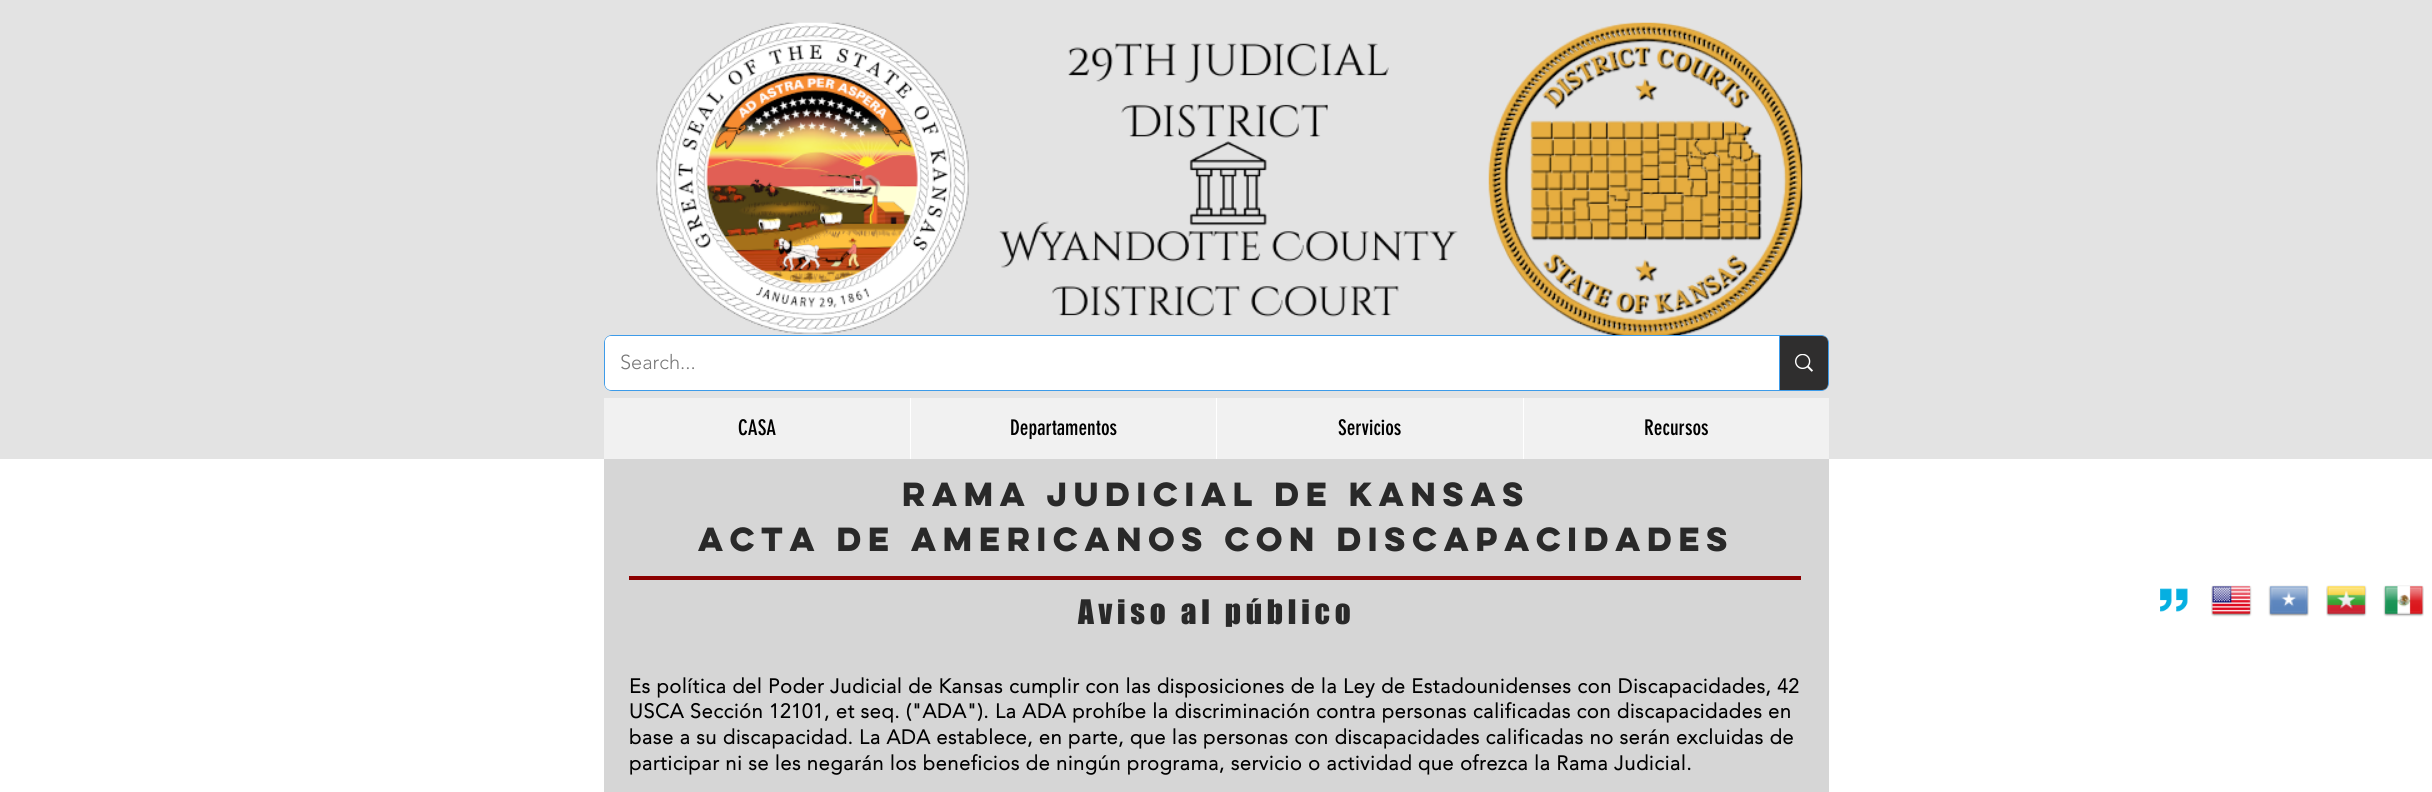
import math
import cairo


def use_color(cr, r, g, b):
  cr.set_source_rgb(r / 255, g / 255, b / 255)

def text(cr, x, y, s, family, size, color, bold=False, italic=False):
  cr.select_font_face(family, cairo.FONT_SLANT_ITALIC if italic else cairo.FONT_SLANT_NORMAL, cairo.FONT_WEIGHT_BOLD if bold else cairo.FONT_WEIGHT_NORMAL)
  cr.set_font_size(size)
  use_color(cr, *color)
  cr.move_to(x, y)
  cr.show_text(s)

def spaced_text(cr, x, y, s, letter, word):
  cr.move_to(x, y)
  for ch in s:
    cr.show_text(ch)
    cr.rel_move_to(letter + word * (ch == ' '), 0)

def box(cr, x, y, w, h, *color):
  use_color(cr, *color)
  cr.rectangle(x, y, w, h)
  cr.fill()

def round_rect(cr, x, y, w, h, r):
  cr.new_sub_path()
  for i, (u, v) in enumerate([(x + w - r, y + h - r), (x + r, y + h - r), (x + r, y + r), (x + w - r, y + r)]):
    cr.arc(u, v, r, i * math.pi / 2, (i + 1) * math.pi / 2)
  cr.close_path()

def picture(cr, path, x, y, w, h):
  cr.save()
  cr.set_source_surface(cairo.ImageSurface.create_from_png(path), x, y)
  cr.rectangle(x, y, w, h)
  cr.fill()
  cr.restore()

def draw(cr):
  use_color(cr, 255, 255, 255)
  cr.paint()
  box(cr, 0, 0, 2432, 459, 227, 227, 227)
  picture(cr, "img_01.png", 656, 22, 1147, 313)
  round_rect(cr, 604.5, 335.5, 1224, 55, 7.5)
  use_color(cr, 61, 155, 233)
  cr.set_line_width(1)
  cr.stroke()
  use_color(cr, 255, 255, 255)
  round_rect(cr, 605, 336, 1223, 54, 6)
  cr.fill()
  use_color(cr, 47, 46, 46)
  cr.new_path()
  cr.move_to(1779, 336)
  cr.line_to(1822, 336)
  cr.curve_to(1825.5, 336, 1828, 338.5, 1828, 342)
  cr.line_to(1828, 384)
  cr.curve_to(1828, 387.5, 1825.5, 390, 1822, 390)
  cr.line_to(1779, 390)
  cr.close_path()
  cr.fill()
  box(cr, 1779, 336, 1, 54, 61, 155, 233)
  picture(cr, "img_02.png", 1795, 354, 18, 18)
  box(cr, 604, 398, 1225, 61, 241, 241, 241)
  box(cr, 910, 398, 1, 61, 255, 255, 255)
  box(cr, 1216, 398, 1, 61, 255, 255, 255)
  box(cr, 1523, 398, 1, 61, 255, 255, 255)
  box(cr, 604, 459, 1225, 333, 214, 214, 214)
  box(cr, 629, 576, 1172, 4, 139, 0, 0)
  picture(cr, "img_03.png", 2160, 585, 264, 32)
  text(cr, 620, 369, "Search...", "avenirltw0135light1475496 Light", 20, (120, 120, 120))
  text(cr, 738, 435, "CASA", "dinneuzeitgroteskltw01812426", 21.25, (0, 0, 0))
  text(cr, 1010, 435, "Departamentos", "dinneuzeitgroteskltw01812426", 21.25, (0, 0, 0))
  text(cr, 1338, 435, "Servicios", "dinneuzeitgroteskltw01812426", 21.25, (0, 0, 0))
  text(cr, 1644, 435, "Recursos", "dinneuzeitgroteskltw01812426", 21.25, (0, 0, 0))
  text(cr, 902, 506, "Rama Judicial de Kansas", "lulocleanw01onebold", 30, (41, 41, 41), bold=True)
  text(cr, 698, 551, "Acta de Americanos con Discapacidades", "lulocleanw01onebold", 30, (41, 41, 41), bold=True)
  cr.select_font_face("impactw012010")
  cr.set_font_size(31.25)
  spaced_text(cr, 1078, 624, "Aviso al público", 4.75, 0)
  cr.select_font_face("avenirltw0135light1475496", cairo.FONT_SLANT_NORMAL, cairo.FONT_WEIGHT_BOLD)
  cr.set_font_size(20)
  use_color(cr, 0, 0, 0)
  spaced_text(cr, 629, 693, "Es política del Poder Judicial de Kansas cumplir con las disposiciones de la Ley de Estadounidenses con Discapacidades, 42", 0.6, 0)
  spaced_text(cr, 629, 718, "USCA Sección 12101, et seq. (\"ADA\"). La ADA prohíbe la discriminación contra personas calificadas con discapacidades en", 0.6, 0)
  spaced_text(cr, 629, 744, "base a su discapacidad. La ADA establece, en parte, que las personas con discapacidades calificadas no serán excluidas de", 0.6, 0)
  spaced_text(cr, 629, 770, "participar ni se les negarán los beneficios de ningún programa, servicio o actividad que ofrezca la Rama Judicial.", 0.6, 0)


surface = cairo.ImageSurface(cairo.FORMAT_RGB24, 2432, 792)
cr = cairo.Context(surface)
options = cairo.FontOptions()
options.set_hint_metrics(cairo.HINT_METRICS_OFF)
options.set_hint_style(cairo.HINT_STYLE_NONE)
cr.set_font_options(options)
cr.set_miter_limit(4)
draw(cr)
surface.write_to_png("out.png")
